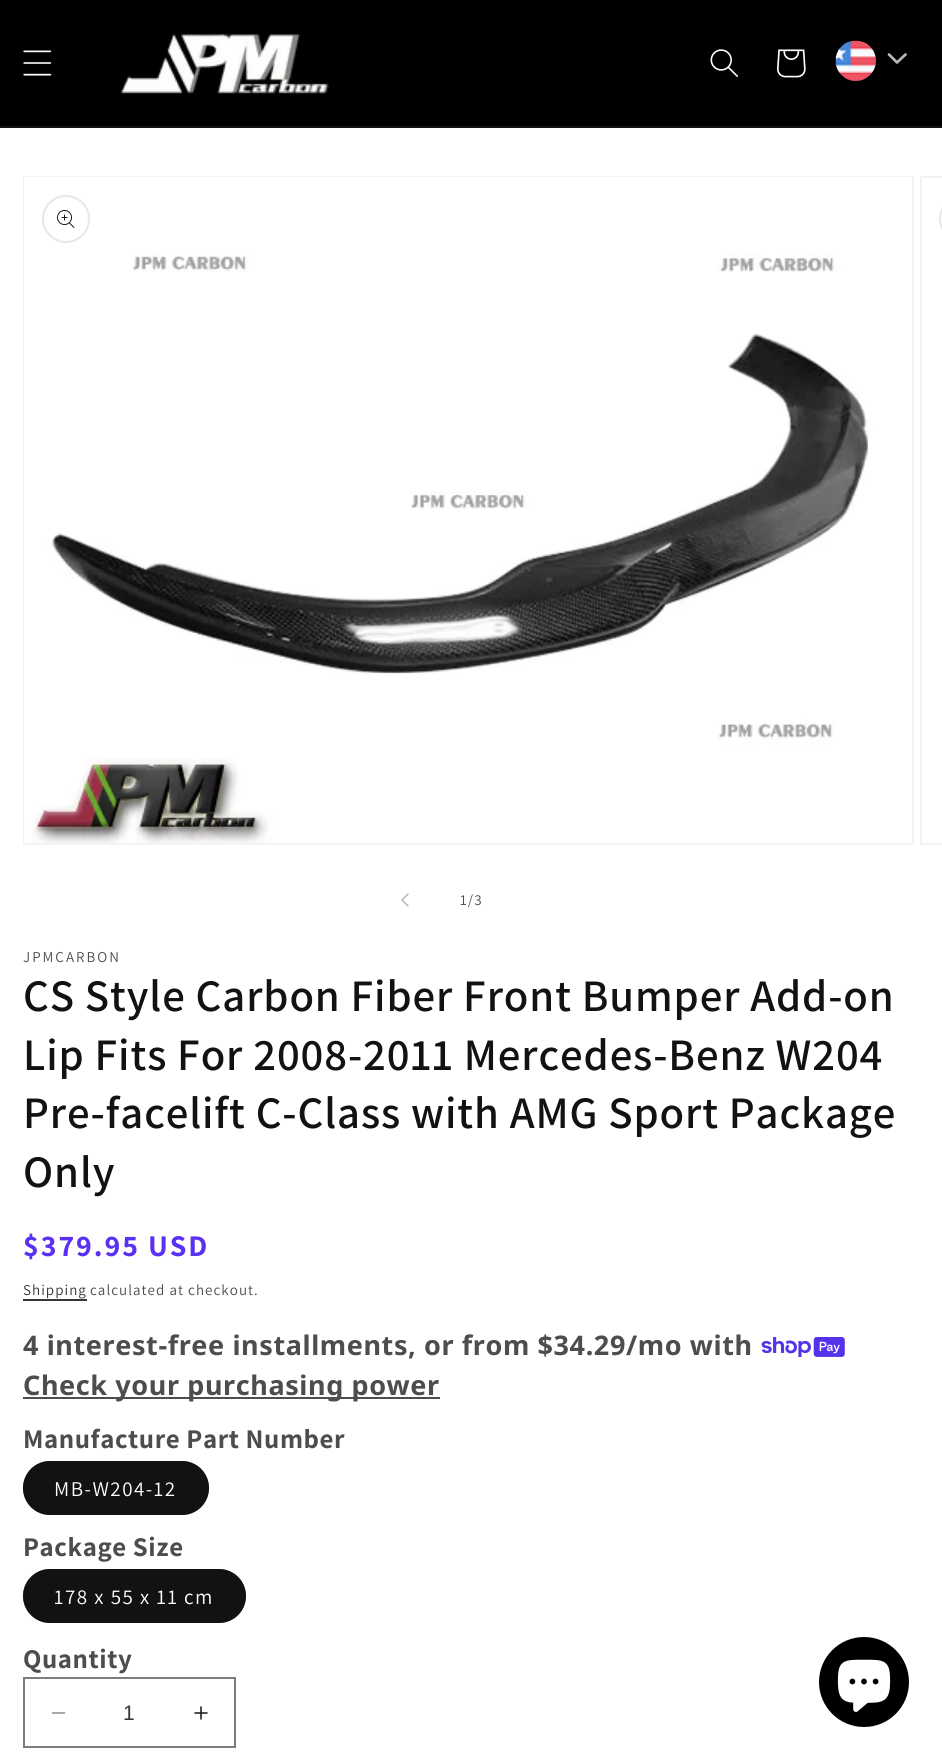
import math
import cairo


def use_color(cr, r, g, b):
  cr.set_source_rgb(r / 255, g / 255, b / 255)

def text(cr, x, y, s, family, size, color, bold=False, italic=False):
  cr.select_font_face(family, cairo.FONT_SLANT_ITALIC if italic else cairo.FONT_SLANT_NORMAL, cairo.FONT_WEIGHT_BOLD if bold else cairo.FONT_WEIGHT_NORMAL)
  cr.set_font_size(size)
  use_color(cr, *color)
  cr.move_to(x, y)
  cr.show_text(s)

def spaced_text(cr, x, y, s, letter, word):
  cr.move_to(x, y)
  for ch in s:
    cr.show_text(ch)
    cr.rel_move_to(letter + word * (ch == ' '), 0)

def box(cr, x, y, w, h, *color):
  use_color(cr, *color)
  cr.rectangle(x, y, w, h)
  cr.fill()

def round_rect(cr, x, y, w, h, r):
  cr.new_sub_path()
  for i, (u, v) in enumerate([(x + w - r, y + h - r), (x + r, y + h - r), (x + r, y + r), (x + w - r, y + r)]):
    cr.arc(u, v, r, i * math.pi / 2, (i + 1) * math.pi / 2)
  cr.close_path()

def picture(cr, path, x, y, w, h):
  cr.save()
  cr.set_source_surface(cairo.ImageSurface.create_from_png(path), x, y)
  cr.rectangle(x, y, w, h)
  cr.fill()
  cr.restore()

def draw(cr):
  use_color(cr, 255, 255, 255)
  cr.paint()
  box(cr, 0, 0, 942, 126, 0, 0, 0)
  box(cr, 0, 126, 942, 2, 20, 20, 20)
  picture(cr, "img_01.png", 23, 50, 29, 26)
  picture(cr, "img_02.png", 121, 34, 208, 60)
  picture(cr, "img_03.png", 710, 49, 28, 28)
  picture(cr, "img_04.png", 777, 49, 29, 29)
  picture(cr, "img_05.png", 835, 40, 41, 41)
  cr.new_path()
  cr.move_to(889, 54.5)
  cr.line_to(897, 62.5)
  cr.line_to(905.5, 54.5)
  use_color(cr, 183, 183, 183)
  cr.set_line_width(2.7)
  cr.set_line_cap(cairo.LINE_CAP_ROUND)
  cr.set_line_join(cairo.LINE_JOIN_ROUND)
  cr.stroke()
  cr.rectangle(24, 177, 889, 667)
  use_color(cr, 243, 243, 243)
  cr.set_line_width(2)
  cr.set_line_cap(cairo.LINE_CAP_BUTT)
  cr.set_line_join(cairo.LINE_JOIN_MITER)
  cr.stroke()
  picture(cr, "img_06.png", 24, 177, 888, 666)
  cr.arc(66, 219, 23, 0, 2 * math.pi)
  use_color(cr, 231, 231, 231)
  cr.stroke()
  picture(cr, "img_07.png", 57, 210, 18, 18)
  cr.rectangle(921, 177, 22, 667)
  use_color(cr, 243, 243, 243)
  cr.stroke()
  round_rect(cr, 940, 196, 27, 46, 23)
  use_color(cr, 231, 231, 231)
  cr.stroke()
  picture(cr, "img_08.png", 401, 893, 8, 14)
  box(cr, 23, 1299, 64, 2, 54, 54, 54)
  picture(cr, "img_09.png", 761, 1337, 84, 21)
  box(cr, 23, 1397, 417, 2, 77, 77, 77)
  use_color(cr, 18, 18, 18)
  round_rect(cr, 23, 1461, 186, 54, 27)
  cr.fill()
  round_rect(cr, 24, 1462, 184, 52, 26)
  cr.set_source_rgba(0.071, 0.071, 0.071, 0.55)
  cr.stroke()
  use_color(cr, 18, 18, 18)
  round_rect(cr, 23, 1569, 223, 54, 27)
  cr.fill()
  round_rect(cr, 24, 1570, 221, 52, 26)
  cr.set_source_rgba(0.071, 0.071, 0.071, 0.55)
  cr.stroke()
  picture(cr, "img_10.png", 51, 1712, 15, 2)
  picture(cr, "img_11.png", 194, 1706, 14, 14)
  cr.rectangle(24, 1678, 211, 69)
  use_color(cr, 125, 125, 125)
  cr.stroke()
  use_color(cr, 0, 0, 0)
  cr.arc(864, 1682, 45, 0, 2 * math.pi)
  cr.fill()
  picture(cr, "img_12.png", 837, 1659, 54, 53)
  cr.select_font_face("Assistant")
  cr.set_font_size(15)
  use_color(cr, 77, 77, 77)
  spaced_text(cr, 460, 905, "1/3", 1.05, 0)
  spaced_text(cr, 23, 962, "JPMCARBON", 2, 0)
  cr.select_font_face("Assistant SemiBold")
  cr.set_font_size(45)
  use_color(cr, 18, 18, 18)
  spaced_text(cr, 23, 1011, "CS Style Carbon Fiber Front Bumper Add-on", 0.9, 0)
  spaced_text(cr, 23, 1070, "Lip Fits For 2008-2011 Mercedes-Benz W204", 0.9, 0)
  spaced_text(cr, 23, 1128, "Pre-facelift C-Class with AMG Sport Package", 0.9, 0)
  spaced_text(cr, 23, 1187, "Only", 0.9, 0)
  cr.select_font_face("Assistant", cairo.FONT_SLANT_NORMAL, cairo.FONT_WEIGHT_BOLD)
  cr.set_font_size(30)
  use_color(cr, 90, 49, 244)
  spaced_text(cr, 23, 1256, "$379.95 USD", 2, 0)
  cr.select_font_face("Assistant")
  cr.set_font_size(15)
  use_color(cr, 54, 54, 54)
  spaced_text(cr, 23, 1295, "Shipping", 1.05, 0)
  use_color(cr, 77, 77, 77)
  spaced_text(cr, 90, 1295, "calculated at checkout.", 1.05, 0)
  cr.select_font_face("Noto Sans", cairo.FONT_SLANT_NORMAL, cairo.FONT_WEIGHT_BOLD)
  cr.set_font_size(27)
  spaced_text(cr, 23, 1355, "4 interest-free installments, or from $34.29/mo with", 0.6, 0)
  spaced_text(cr, 23, 1395, "Check your purchasing power", 0.6, 0)
  cr.select_font_face("Assistant", cairo.FONT_SLANT_NORMAL, cairo.FONT_WEIGHT_BOLD)
  spaced_text(cr, 23, 1448, "Manufacture Part Number", 0.6, 0)
  cr.select_font_face("Assistant")
  cr.set_font_size(21)
  use_color(cr, 255, 255, 255)
  spaced_text(cr, 54, 1496, "MB-W204-12", 1.5, 0)
  cr.select_font_face("Assistant", cairo.FONT_SLANT_NORMAL, cairo.FONT_WEIGHT_BOLD)
  cr.set_font_size(27)
  use_color(cr, 77, 77, 77)
  spaced_text(cr, 23, 1556, "Package Size", 0.6, 0)
  cr.select_font_face("Assistant")
  cr.set_font_size(21)
  use_color(cr, 255, 255, 255)
  spaced_text(cr, 54, 1604, "178 x 55 x 11 cm", 1.5, 0)
  cr.select_font_face("Assistant", cairo.FONT_SLANT_NORMAL, cairo.FONT_WEIGHT_BOLD)
  cr.set_font_size(27)
  use_color(cr, 77, 77, 77)
  spaced_text(cr, 23, 1668, "Quantity", 0.6, 0)
  text(cr, 123, 1720, "1", "Liberation Sans", 21, (54, 54, 54))


surface = cairo.ImageSurface(cairo.FORMAT_RGB24, 942, 1758)
cr = cairo.Context(surface)
options = cairo.FontOptions()
options.set_hint_metrics(cairo.HINT_METRICS_OFF)
options.set_hint_style(cairo.HINT_STYLE_NONE)
cr.set_font_options(options)
cr.set_miter_limit(4)
draw(cr)
surface.write_to_png("out.png")
